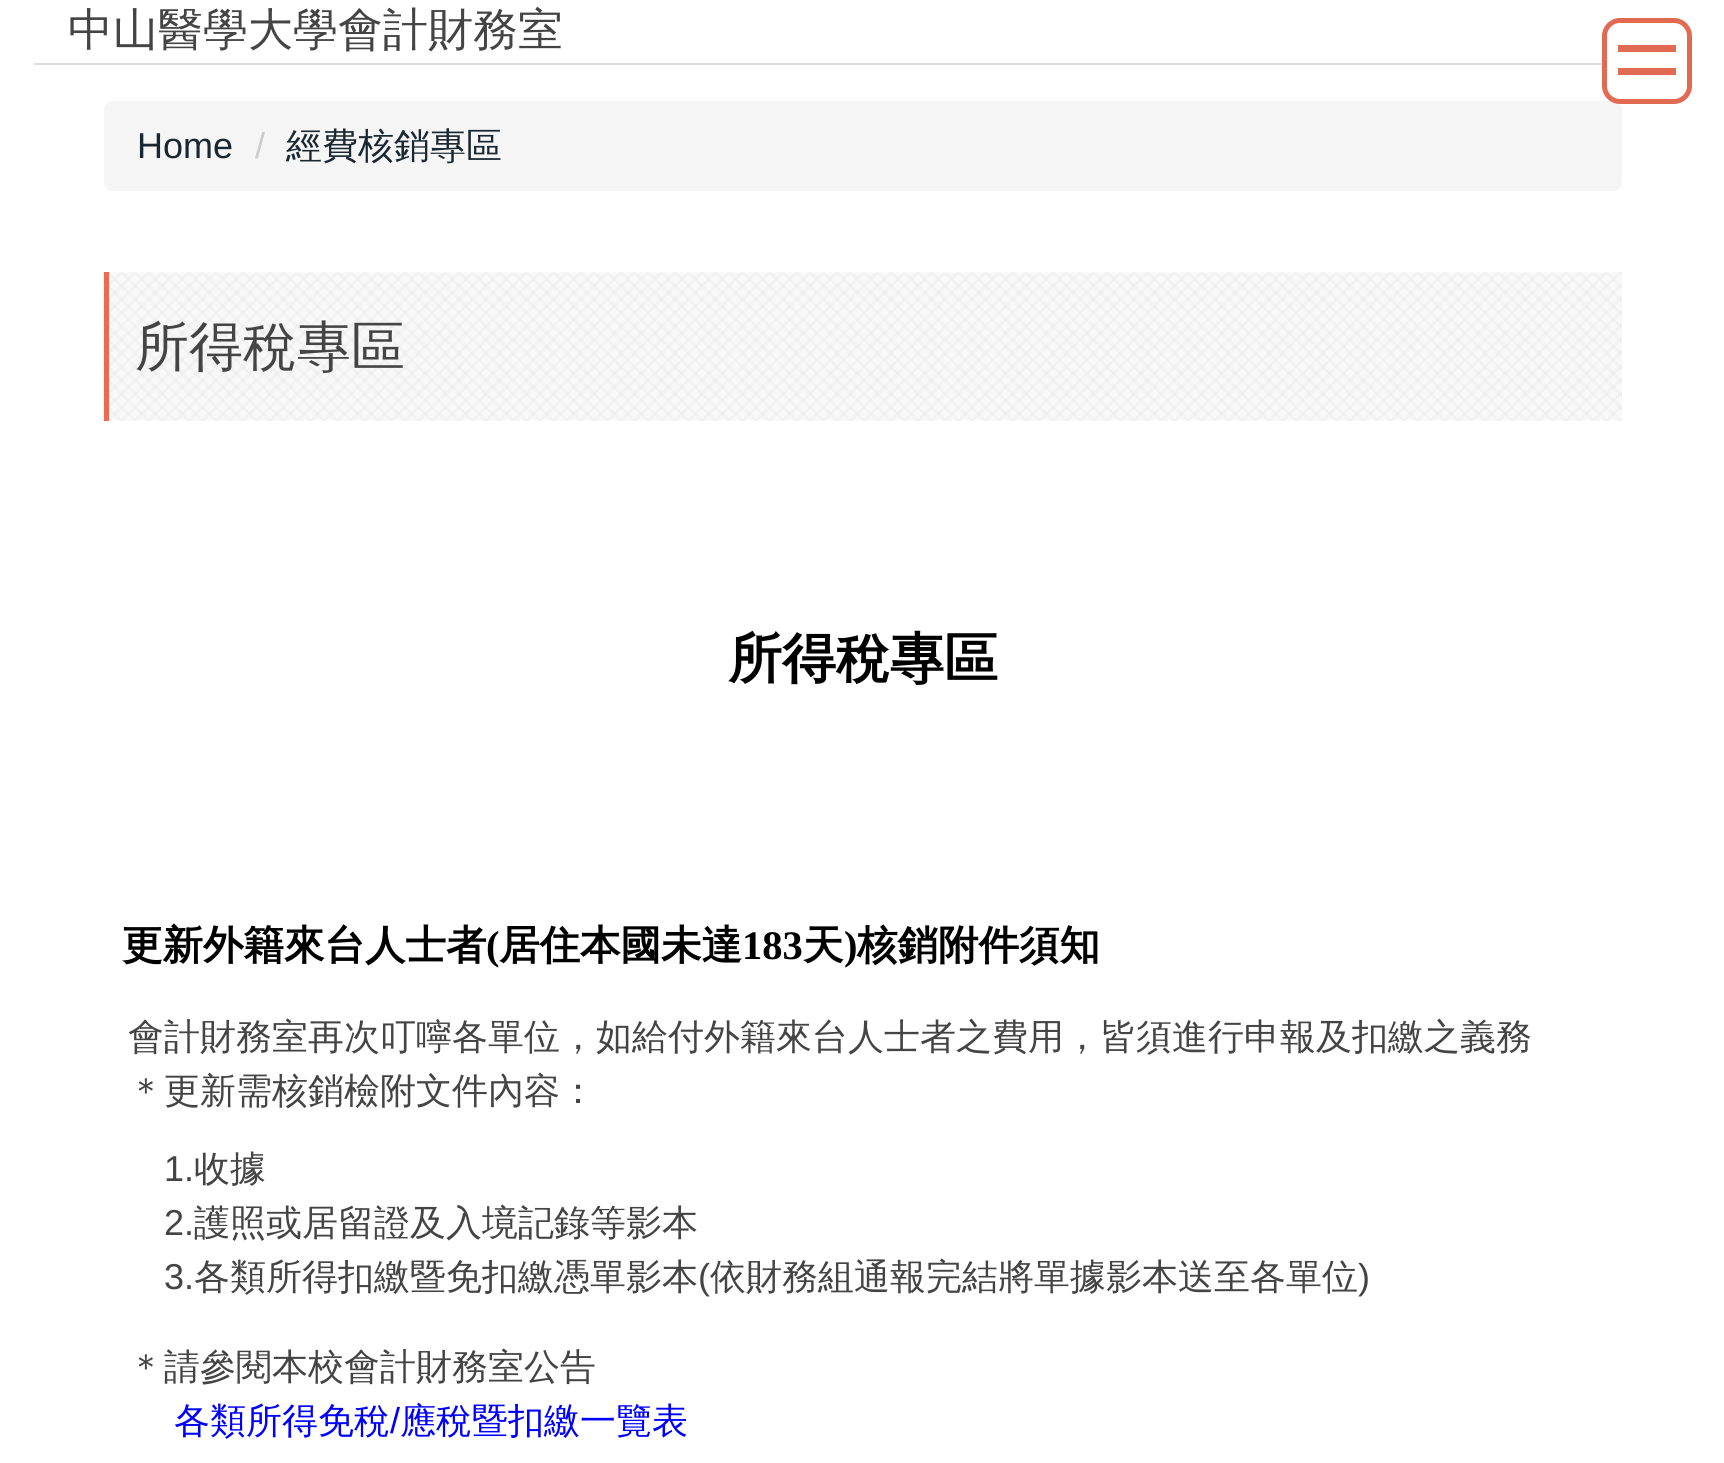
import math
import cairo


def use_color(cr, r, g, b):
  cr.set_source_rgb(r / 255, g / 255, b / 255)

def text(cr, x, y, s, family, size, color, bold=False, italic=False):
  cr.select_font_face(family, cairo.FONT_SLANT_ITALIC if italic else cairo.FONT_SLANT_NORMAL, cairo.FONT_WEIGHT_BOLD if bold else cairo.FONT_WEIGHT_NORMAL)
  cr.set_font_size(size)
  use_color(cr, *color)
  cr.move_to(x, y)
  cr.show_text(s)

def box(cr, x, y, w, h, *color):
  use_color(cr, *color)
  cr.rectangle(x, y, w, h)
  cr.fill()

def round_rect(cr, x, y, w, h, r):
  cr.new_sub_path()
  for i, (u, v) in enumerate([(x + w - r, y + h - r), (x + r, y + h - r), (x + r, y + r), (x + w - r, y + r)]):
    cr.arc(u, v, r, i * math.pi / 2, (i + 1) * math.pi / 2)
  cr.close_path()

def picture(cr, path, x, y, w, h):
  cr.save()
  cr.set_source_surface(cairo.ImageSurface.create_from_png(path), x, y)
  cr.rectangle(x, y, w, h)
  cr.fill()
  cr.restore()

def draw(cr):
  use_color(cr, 255, 255, 255)
  cr.paint()
  box(cr, 34, 63, 1568, 2, 221, 221, 221)
  use_color(cr, 245, 245, 245)
  round_rect(cr, 104, 101, 1518, 90, 9)
  cr.fill()
  use_color(cr, 255, 255, 255)
  round_rect(cr, 1604.5, 20.5, 85, 81, 15.5)
  cr.fill_preserve()
  use_color(cr, 226, 105, 82)
  cr.set_line_width(5)
  cr.stroke()
  box(cr, 1618, 45, 58, 7, 226, 105, 82)
  box(cr, 1618, 68, 58, 7, 226, 105, 82)
  picture(cr, "img_01.png", 103, 272, 1519, 149)
  box(cr, 104, 272, 5, 149, 236, 105, 82)
  text(cr, 68, 45, "中山醫學大學會計財務室", "WenQuanYi Zen Hei Medium", 45, (68, 68, 68))
  text(cr, 137, 158, "Home", "Liberation Sans", 36, (26, 39, 49))
  text(cr, 255, 158, "/", "Liberation Sans", 36, (204, 204, 204))
  text(cr, 286, 158, "經費核銷專區", "WenQuanYi Zen Hei Medium", 36, (26, 39, 49))
  text(cr, 135, 365, "所得稅專區", "WenQuanYi Zen Hei Medium", 54, (68, 68, 68))
  text(cr, 728, 677, "所得稅專區", "WenQuanYi Zen Hei", 54, (0, 0, 0), bold=True)
  text(cr, 122, 959, "更新外籍來台人士者", "WenQuanYi Zen Hei", 40.5, (0, 0, 0), bold=True)
  text(cr, 486, 959, "(", "Liberation Serif", 40.5, (0, 0, 0), bold=True)
  text(cr, 499, 959, "居住本國未達", "WenQuanYi Zen Hei", 40.5, (0, 0, 0), bold=True)
  text(cr, 742, 959, "183", "Liberation Serif", 40.5, (0, 0, 0), bold=True)
  text(cr, 803, 959, "天", "WenQuanYi Zen Hei", 40.5, (0, 0, 0), bold=True)
  text(cr, 844, 959, ")", "Liberation Serif", 40.5, (0, 0, 0), bold=True)
  text(cr, 857, 959, "核銷附件須知", "WenQuanYi Zen Hei", 40.5, (0, 0, 0), bold=True)
  text(cr, 128, 1049, "會計財務室再次叮嚀各單位，如給付外籍來台人士者之費用，皆須進行申報及扣繳之義務", "WenQuanYi Zen Hei Medium", 36, (68, 68, 68))
  text(cr, 128, 1103, "＊更新需核銷檢附文件內容：", "WenQuanYi Zen Hei Medium", 36, (68, 68, 68))
  text(cr, 164, 1181, "1.", "Liberation Sans", 36, (68, 68, 68))
  text(cr, 194, 1181, "收據", "WenQuanYi Zen Hei Medium", 36, (68, 68, 68))
  text(cr, 164, 1235, "2.", "Liberation Sans", 36, (68, 68, 68))
  text(cr, 194, 1235, "護照或居留證及入境記錄等影本", "WenQuanYi Zen Hei Medium", 36, (68, 68, 68))
  text(cr, 164, 1289, "3.", "Liberation Sans", 36, (68, 68, 68))
  text(cr, 194, 1289, "各類所得扣繳暨免扣繳憑單影本", "WenQuanYi Zen Hei Medium", 36, (68, 68, 68))
  text(cr, 698, 1289, "(", "Liberation Sans", 36, (68, 68, 68))
  text(cr, 710, 1289, "依財務組通報完結將單據影本送至各單位", "WenQuanYi Zen Hei Medium", 36, (68, 68, 68))
  text(cr, 1358, 1289, ")", "Liberation Sans", 36, (68, 68, 68))
  text(cr, 128, 1379, "＊請參閱本校會計財務室公告", "WenQuanYi Zen Hei Medium", 36, (68, 68, 68))
  text(cr, 174, 1433, "各類所得免稅", "WenQuanYi Zen Hei Medium", 36, (0, 0, 255))
  text(cr, 390, 1433, "/", "Liberation Sans", 36, (0, 0, 255))
  text(cr, 400, 1433, "應稅暨扣繳一覽表", "WenQuanYi Zen Hei Medium", 36, (0, 0, 255))


surface = cairo.ImageSurface(cairo.FORMAT_RGB24, 1724, 1463)
cr = cairo.Context(surface)
options = cairo.FontOptions()
options.set_hint_metrics(cairo.HINT_METRICS_OFF)
options.set_hint_style(cairo.HINT_STYLE_NONE)
cr.set_font_options(options)
cr.set_miter_limit(4)
draw(cr)
surface.write_to_png("out.png")
